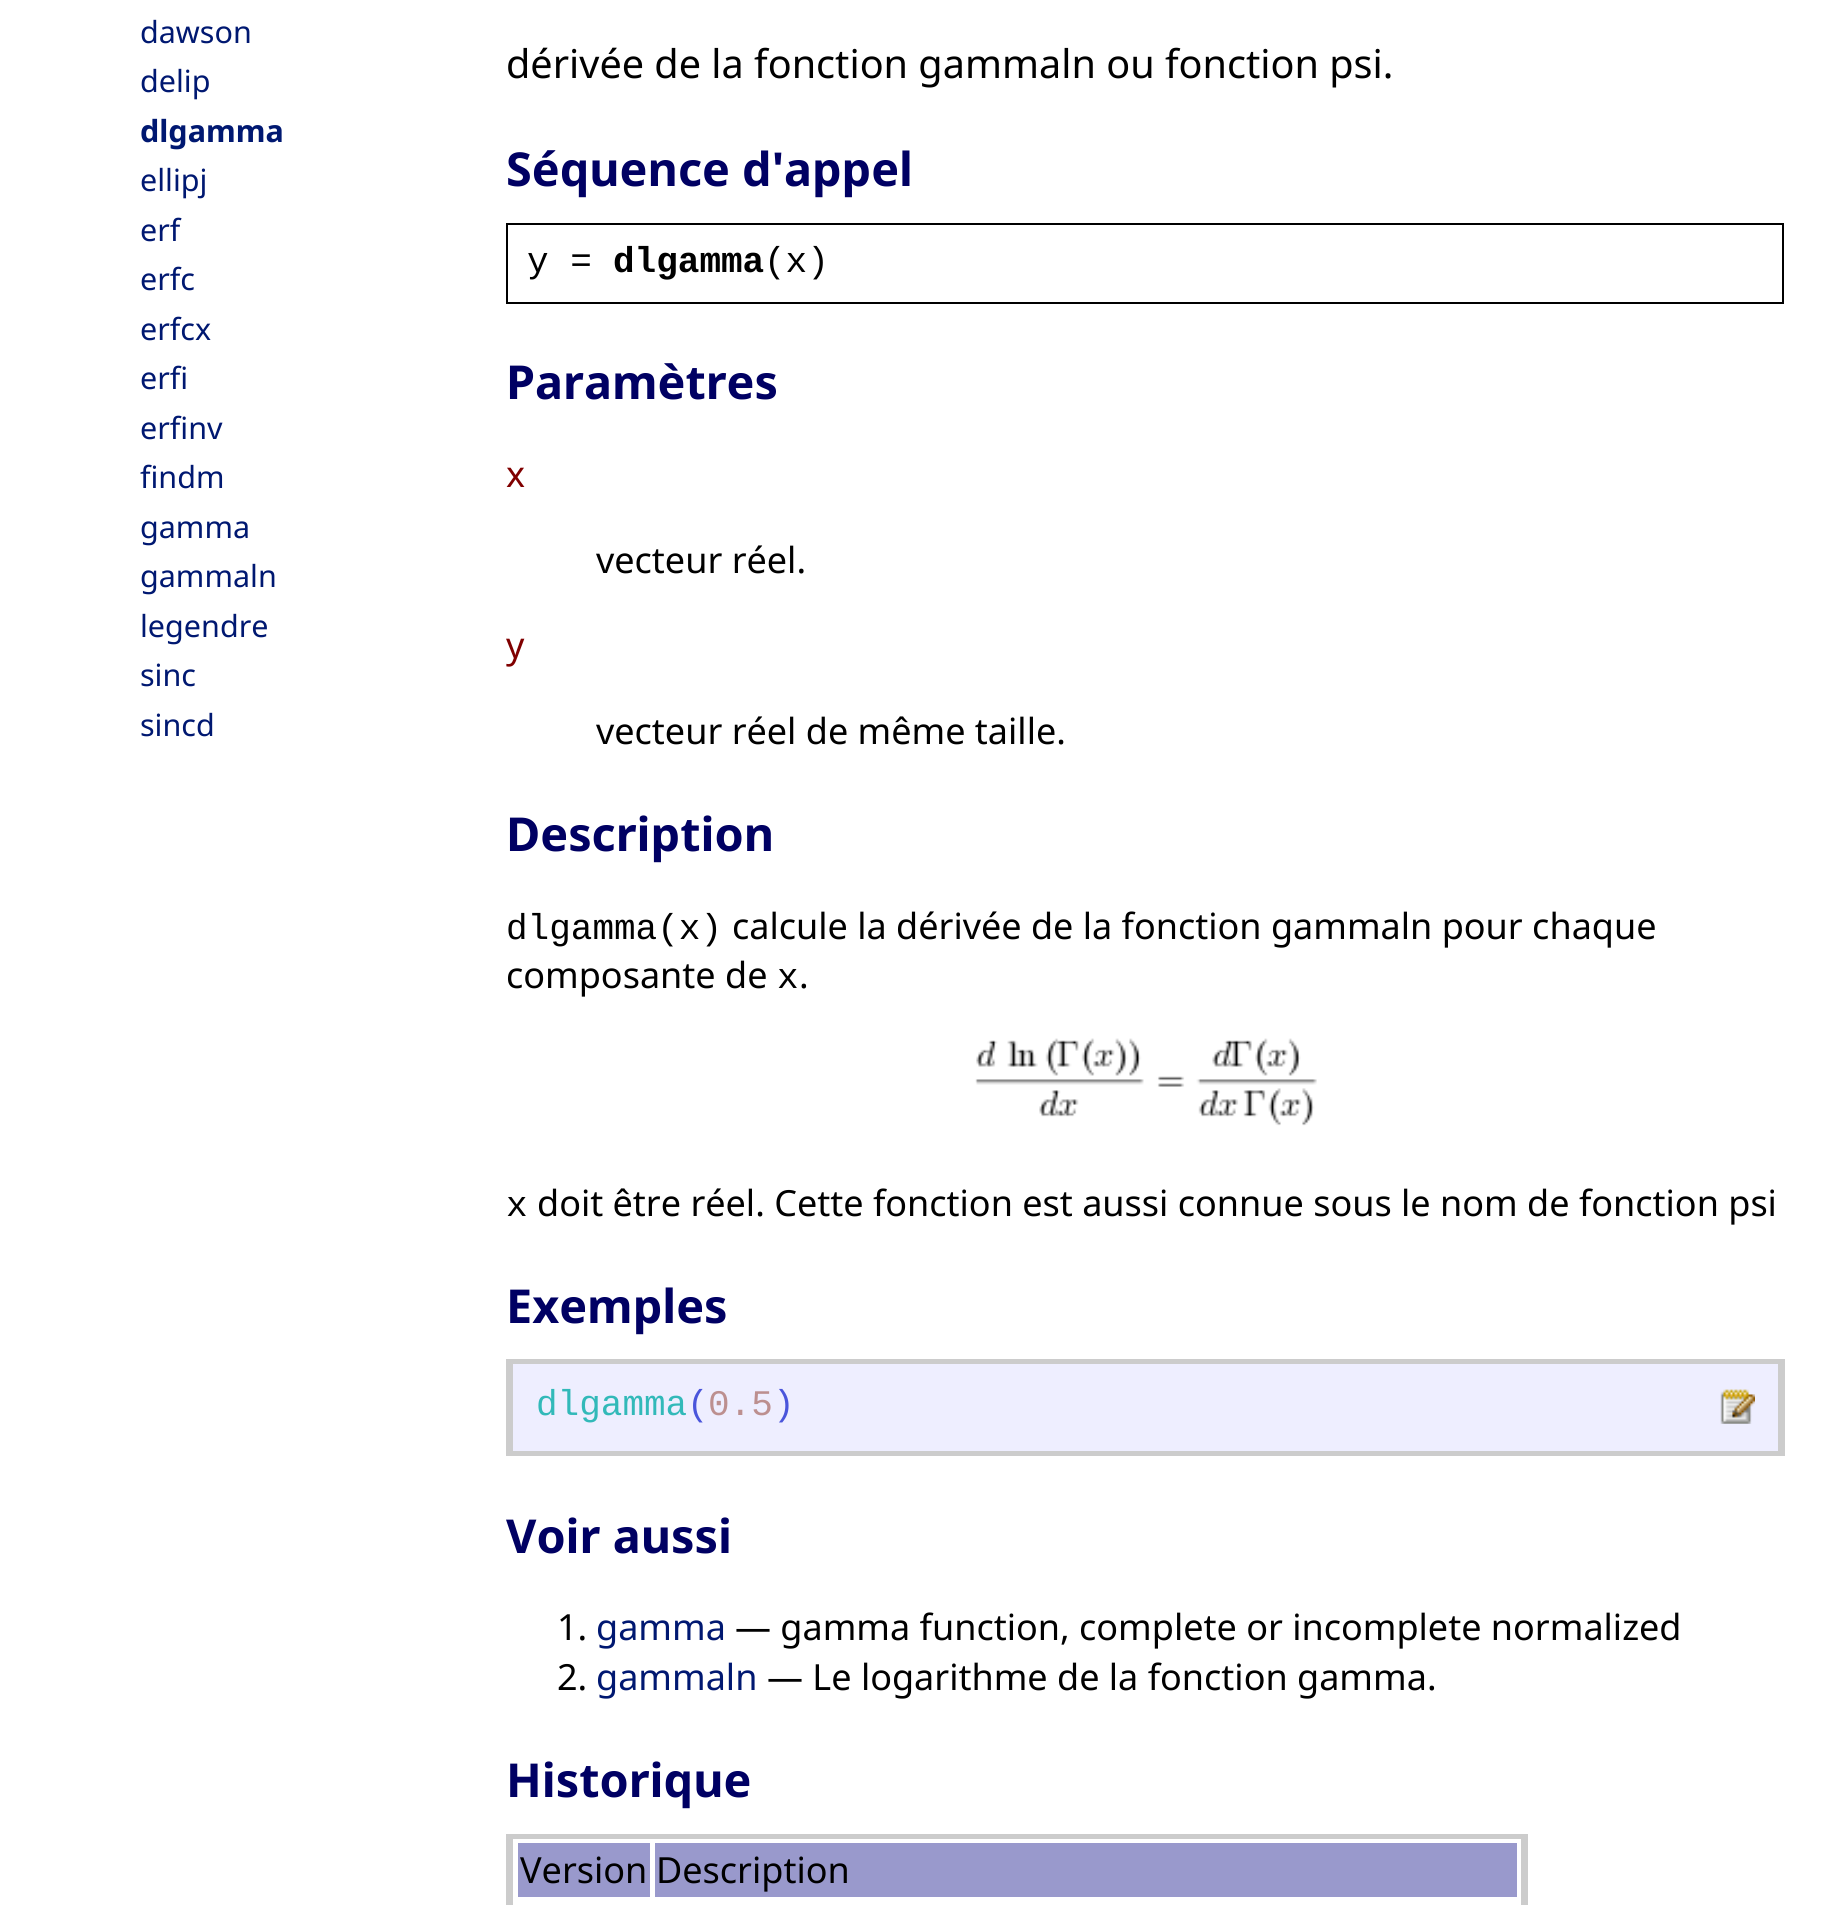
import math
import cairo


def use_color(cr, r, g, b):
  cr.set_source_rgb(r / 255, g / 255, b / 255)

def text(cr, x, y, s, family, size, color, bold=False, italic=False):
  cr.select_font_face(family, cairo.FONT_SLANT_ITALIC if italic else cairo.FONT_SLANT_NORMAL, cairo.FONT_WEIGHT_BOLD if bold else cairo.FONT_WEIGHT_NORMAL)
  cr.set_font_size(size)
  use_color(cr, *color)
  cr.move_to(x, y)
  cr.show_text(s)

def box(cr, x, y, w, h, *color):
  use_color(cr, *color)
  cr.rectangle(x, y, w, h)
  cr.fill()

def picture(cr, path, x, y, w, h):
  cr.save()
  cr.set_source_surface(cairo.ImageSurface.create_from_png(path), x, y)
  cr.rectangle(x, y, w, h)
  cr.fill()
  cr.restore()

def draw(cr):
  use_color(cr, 255, 255, 255)
  cr.paint()
  cr.rectangle(507, 224, 1276, 79)
  use_color(cr, 0, 0, 0)
  cr.stroke()
  picture(cr, "img_01.png", 975, 1038, 342, 88)
  box(cr, 513, 1364, 1265, 87, 238, 238, 255)
  box(cr, 506, 1359, 1278, 5, 204, 204, 204)
  box(cr, 1778, 1359, 7, 97, 204, 204, 204)
  box(cr, 506, 1451, 1278, 5, 204, 204, 204)
  box(cr, 506, 1359, 7, 97, 204, 204, 204)
  picture(cr, "img_02.png", 1720, 1389, 35, 35)
  box(cr, 506, 1834, 1022, 5, 204, 204, 204)
  box(cr, 1521, 1834, 7, 71, 204, 204, 204)
  box(cr, 506, 1834, 7, 71, 204, 204, 204)
  box(cr, 518, 1843, 132, 54, 153, 153, 204)
  box(cr, 655, 1843, 862, 54, 153, 153, 204)
  text(cr, 140, 43, "dawson", "Noto Sans", 30.5, (0, 24, 113))
  text(cr, 140, 92, "delip", "Noto Sans", 30.5, (0, 24, 113))
  text(cr, 140, 142, "dlgamma", "Noto Sans", 30.5, (0, 24, 113), bold=True)
  text(cr, 140, 191, "ellipj", "Noto Sans", 30.5, (0, 24, 113))
  text(cr, 140, 241, "erf", "Noto Sans", 30.5, (0, 24, 113))
  text(cr, 140, 290, "erfc", "Noto Sans", 30.5, (0, 24, 113))
  text(cr, 140, 340, "erfcx", "Noto Sans", 30.5, (0, 24, 113))
  text(cr, 140, 389, "erfi", "Noto Sans", 30.5, (0, 24, 113))
  text(cr, 140, 439, "erfinv", "Noto Sans", 30.5, (0, 24, 113))
  text(cr, 140, 488, "findm", "Noto Sans", 30.5, (0, 24, 113))
  text(cr, 140, 538, "gamma", "Noto Sans", 30.5, (0, 24, 113))
  text(cr, 140, 587, "gammaln", "Noto Sans", 30.5, (0, 24, 113))
  text(cr, 140, 637, "legendre", "Noto Sans", 30.5, (0, 24, 113))
  text(cr, 140, 686, "sinc", "Noto Sans", 30.5, (0, 24, 113))
  text(cr, 140, 736, "sincd", "Noto Sans", 30.5, (0, 24, 113))
  text(cr, 506, 78, "dérivée de la fonction gammaln ou fonction psi.", "Noto Sans", 39.6, (0, 0, 0))
  text(cr, 506, 186, "Séquence d'appel", "Noto Sans", 46.75, (0, 0, 99), bold=True)
  text(cr, 527, 272, "y =", "Liberation Mono", 36, (0, 0, 0))
  text(cr, 613, 272, "dlgamma", "Liberation Mono", 36, (0, 0, 0), bold=True)
  text(cr, 764, 272, "(x)", "Liberation Mono", 36, (0, 0, 0))
  text(cr, 506, 399, "Paramètres", "Noto Sans", 46.75, (0, 0, 99), bold=True)
  text(cr, 506, 487, "x", "Noto Sans", 36, (128, 0, 0))
  text(cr, 596, 573, "vecteur réel.", "Noto Sans", 36, (0, 0, 0))
  text(cr, 506, 658, "y", "Noto Sans", 36, (128, 0, 0))
  text(cr, 596, 744, "vecteur réel de même taille.", "Noto Sans", 36, (0, 0, 0))
  text(cr, 506, 851, "Description", "Noto Sans", 46.75, (0, 0, 99), bold=True)
  text(cr, 506, 939, "dlgamma(x)", "Liberation Mono", 36, (0, 0, 0))
  text(cr, 732, 939, "calcule la dérivée de la fonction gammaln pour chaque", "Noto Sans", 36, (0, 0, 0))
  text(cr, 506, 988, "composante de", "Noto Sans", 36, (0, 0, 0))
  text(cr, 777, 988, "x", "Liberation Mono", 36, (0, 0, 0))
  text(cr, 799, 988, ".", "Noto Sans", 36, (0, 0, 0))
  text(cr, 506, 1216, "x", "Liberation Mono", 36, (0, 0, 0))
  text(cr, 537, 1216, "doit être réel. Cette fonction est aussi connue sous le nom de fonction psi", "Noto Sans", 36, (0, 0, 0))
  text(cr, 506, 1323, "Exemples", "Noto Sans", 46.75, (0, 0, 99), bold=True)
  text(cr, 536, 1415, "dlgamma", "Liberation Mono", 36, (50, 185, 185))
  text(cr, 687, 1415, "(", "Liberation Mono", 36, (74, 85, 219))
  text(cr, 708, 1415, "0.5", "Liberation Mono", 36, (188, 143, 143))
  text(cr, 773, 1415, ")", "Liberation Mono", 36, (74, 85, 219))
  text(cr, 506, 1553, "Voir aussi", "Noto Sans", 46.75, (0, 0, 99), bold=True)
  text(cr, 557, 1640, "1.", "Noto Sans", 36, (0, 0, 0))
  text(cr, 596, 1640, "gamma", "Noto Sans", 36, (0, 24, 113))
  text(cr, 735, 1640, "— gamma function, complete or incomplete normalized", "Noto Sans", 36, (0, 0, 0))
  text(cr, 557, 1690, "2.", "Noto Sans", 36, (0, 0, 0))
  text(cr, 596, 1690, "gammaln", "Noto Sans", 36, (0, 24, 113))
  text(cr, 767, 1690, "— Le logarithme de la fonction gamma.", "Noto Sans", 36, (0, 0, 0))
  text(cr, 506, 1797, "Historique", "Noto Sans", 46.75, (0, 0, 99), bold=True)
  text(cr, 520, 1883, "Version", "Noto Sans", 36, (0, 0, 0))
  text(cr, 656, 1883, "Description", "Noto Sans", 36, (0, 0, 0))


surface = cairo.ImageSurface(cairo.FORMAT_RGB24, 1840, 1905)
cr = cairo.Context(surface)
options = cairo.FontOptions()
options.set_hint_metrics(cairo.HINT_METRICS_OFF)
options.set_hint_style(cairo.HINT_STYLE_NONE)
cr.set_font_options(options)
cr.set_miter_limit(4)
draw(cr)
surface.write_to_png("out.png")
